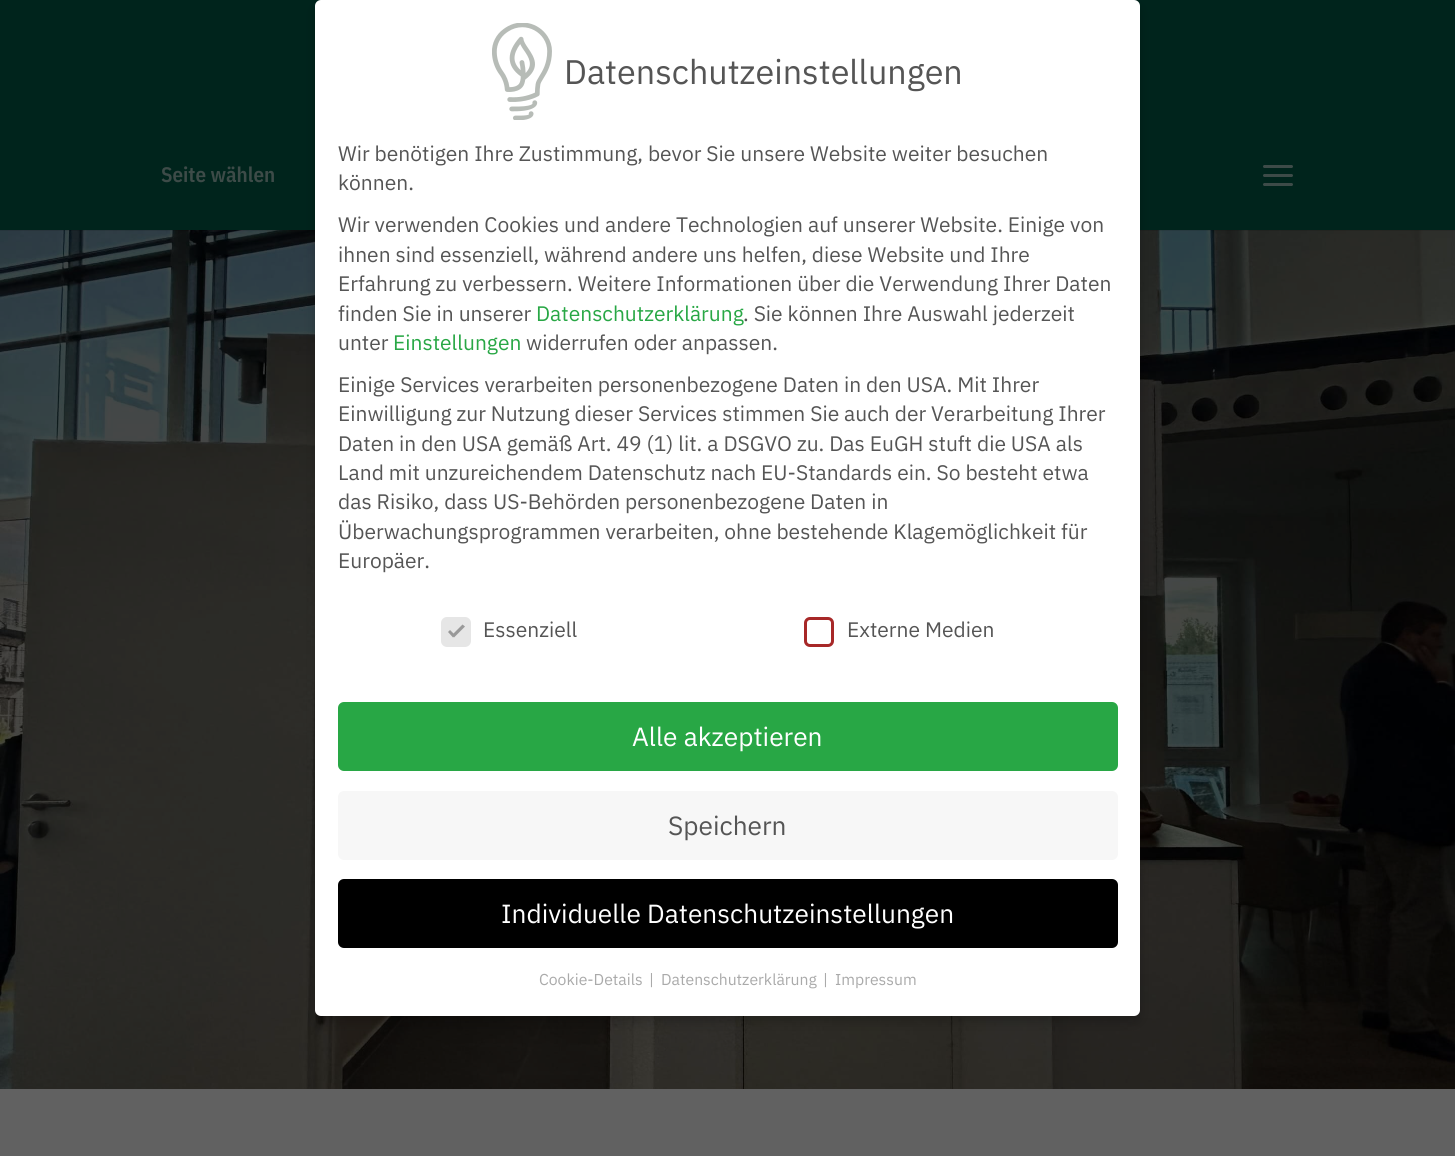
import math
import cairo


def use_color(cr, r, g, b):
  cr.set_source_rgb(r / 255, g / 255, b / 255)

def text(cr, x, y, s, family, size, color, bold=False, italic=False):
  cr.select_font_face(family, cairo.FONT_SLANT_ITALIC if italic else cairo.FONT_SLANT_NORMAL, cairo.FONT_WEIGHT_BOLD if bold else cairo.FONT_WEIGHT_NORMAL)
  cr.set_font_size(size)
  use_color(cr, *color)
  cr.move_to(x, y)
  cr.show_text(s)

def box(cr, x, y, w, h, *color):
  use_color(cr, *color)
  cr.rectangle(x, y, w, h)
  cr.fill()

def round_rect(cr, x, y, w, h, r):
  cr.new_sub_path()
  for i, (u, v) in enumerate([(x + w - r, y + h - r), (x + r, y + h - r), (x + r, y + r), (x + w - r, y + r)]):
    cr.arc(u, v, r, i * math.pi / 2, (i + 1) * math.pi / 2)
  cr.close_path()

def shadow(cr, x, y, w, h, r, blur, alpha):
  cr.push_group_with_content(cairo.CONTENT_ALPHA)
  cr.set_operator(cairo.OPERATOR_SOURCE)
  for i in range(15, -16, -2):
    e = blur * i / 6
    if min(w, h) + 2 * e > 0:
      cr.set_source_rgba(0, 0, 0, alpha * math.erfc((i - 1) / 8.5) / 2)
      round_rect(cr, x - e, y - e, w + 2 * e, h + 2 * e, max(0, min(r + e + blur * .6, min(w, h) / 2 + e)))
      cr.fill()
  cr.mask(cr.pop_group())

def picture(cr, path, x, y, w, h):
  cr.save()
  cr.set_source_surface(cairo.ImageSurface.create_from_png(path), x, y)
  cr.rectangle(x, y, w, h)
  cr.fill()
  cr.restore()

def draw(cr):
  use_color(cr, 255, 255, 255)
  cr.paint()
  picture(cr, "img_02.png", 0, 230, 1455, 859)
  cr.set_source_rgba(0, 0, 0, 0.1)
  cr.rectangle(0, 230, 1455, 1)
  cr.fill()
  box(cr, 0, 0, 1455, 230, 0, 36, 28)
  picture(cr, "img_01.png", 1263, 165, 30, 21)
  box(cr, 0, 1089, 1455, 67, 97, 97, 97)
  use_color(cr, 0, 0, 0)
  shadow(cr, 315, 6, 825, 1016, 6, 6, 0.2)
  use_color(cr, 255, 255, 255)
  round_rect(cr, 315, 0, 825, 1016, 6)
  cr.fill()
  picture(cr, "img_03.png", 492, 23, 60, 97)
  use_color(cr, 230, 230, 230)
  round_rect(cr, 442.5, 618.5, 27, 27, 4.5)
  cr.fill_preserve()
  cr.set_line_width(3)
  cr.stroke()
  use_color(cr, 153, 153, 153)
  cr.new_path()
  cr.move_to(462.5, 624.5)
  cr.line_to(465, 626.5)
  cr.line_to(454, 637.5)
  cr.line_to(452, 635)
  cr.close_path()
  cr.fill()
  cr.new_path()
  cr.move_to(450, 630)
  cr.line_to(455, 635)
  cr.line_to(453, 637.5)
  cr.line_to(448, 632)
  cr.close_path()
  cr.fill()
  round_rect(cr, 805.5, 618.5, 27, 27, 4.5)
  use_color(cr, 167, 40, 40)
  cr.stroke()
  use_color(cr, 40, 167, 69)
  round_rect(cr, 338, 702, 780, 69, 6)
  cr.fill()
  use_color(cr, 247, 247, 247)
  round_rect(cr, 338, 791, 780, 69, 6)
  cr.fill()
  use_color(cr, 0, 0, 0)
  round_rect(cr, 338, 879, 780, 69, 6)
  cr.fill()
  text(cr, 161, 182, "Seite wählen", "IBM Plex Sans Condensed SemiBold", 21, (61, 75, 72))
  text(cr, 564, 84, "Datenschutzeinstellungen", "IBM Plex Sans", 34.1, (85, 85, 85))
  text(cr, 338, 161, "Wir benötigen Ihre Zustimmung, bevor Sie unsere Website weiter besuchen", "IBM Plex Sans", 21, (85, 85, 85))
  text(cr, 338, 190, "können.", "IBM Plex Sans", 21, (85, 85, 85))
  text(cr, 338, 232, "Wir verwenden Cookies und andere Technologien auf unserer Website. Einige von", "IBM Plex Sans", 21, (85, 85, 85))
  text(cr, 338, 262, "ihnen sind essenziell, während andere uns helfen, diese Website und Ihre", "IBM Plex Sans", 21, (85, 85, 85))
  text(cr, 338, 291, "Erfahrung zu verbessern. Weitere Informationen über die Verwendung Ihrer Daten", "IBM Plex Sans", 21, (85, 85, 85))
  text(cr, 338, 321, "finden Sie in unserer", "IBM Plex Sans", 21, (85, 85, 85))
  text(cr, 536, 321, "Datenschutzerklärung", "IBM Plex Sans", 21, (40, 167, 69))
  text(cr, 743, 321, ". Sie können Ihre Auswahl jederzeit", "IBM Plex Sans", 21, (85, 85, 85))
  text(cr, 338, 350, "unter", "IBM Plex Sans", 21, (85, 85, 85))
  text(cr, 393, 350, "Einstellungen", "IBM Plex Sans", 21, (40, 167, 69))
  text(cr, 526, 350, "widerrufen oder anpassen.", "IBM Plex Sans", 21, (85, 85, 85))
  text(cr, 338, 392, "Einige Services verarbeiten personenbezogene Daten in den USA. Mit Ihrer", "IBM Plex Sans", 21, (85, 85, 85))
  text(cr, 338, 421, "Einwilligung zur Nutzung dieser Services stimmen Sie auch der Verarbeitung Ihrer", "IBM Plex Sans", 21, (85, 85, 85))
  text(cr, 338, 451, "Daten in den USA gemäß Art. 49 (1) lit. a DSGVO zu. Das EuGH stuft die USA als", "IBM Plex Sans", 21, (85, 85, 85))
  text(cr, 338, 480, "Land mit unzureichendem Datenschutz nach EU-Standards ein. So besteht etwa", "IBM Plex Sans", 21, (85, 85, 85))
  text(cr, 338, 509, "das Risiko, dass US-Behörden personenbezogene Daten in", "IBM Plex Sans", 21, (85, 85, 85))
  text(cr, 338, 539, "Überwachungsprogrammen verarbeiten, ohne bestehende Klagemöglichkeit für", "IBM Plex Sans", 21, (85, 85, 85))
  text(cr, 338, 568, "Europäer.", "IBM Plex Sans", 21, (85, 85, 85))
  text(cr, 483, 637, "Essenziell", "IBM Plex Sans", 21, (85, 85, 85))
  text(cr, 847, 637, "Externe Medien", "IBM Plex Sans", 21, (85, 85, 85))
  text(cr, 632, 746, "Alle akzeptieren", "IBM Plex Sans", 26.25, (255, 255, 255))
  text(cr, 668, 835, "Speichern", "IBM Plex Sans", 26.25, (85, 85, 85))
  text(cr, 501, 923, "Individuelle Datenschutzeinstellungen", "IBM Plex Sans", 26.25, (255, 255, 255))
  text(cr, 539, 985, "Cookie-Details", "IBM Plex Sans", 15.75, (170, 170, 170))
  text(cr, 649, 985, "|", "IBM Plex Sans", 15.75, (170, 170, 170))
  text(cr, 661, 985, "Datenschutzerklärung", "IBM Plex Sans", 15.75, (170, 170, 170))
  text(cr, 823, 985, "|", "IBM Plex Sans", 15.75, (170, 170, 170))
  text(cr, 835, 985, "Impressum", "IBM Plex Sans", 15.75, (170, 170, 170))


surface = cairo.ImageSurface(cairo.FORMAT_RGB24, 1455, 1156)
cr = cairo.Context(surface)
options = cairo.FontOptions()
options.set_hint_metrics(cairo.HINT_METRICS_OFF)
options.set_hint_style(cairo.HINT_STYLE_NONE)
cr.set_font_options(options)
cr.set_miter_limit(4)
draw(cr)
surface.write_to_png("out.png")
